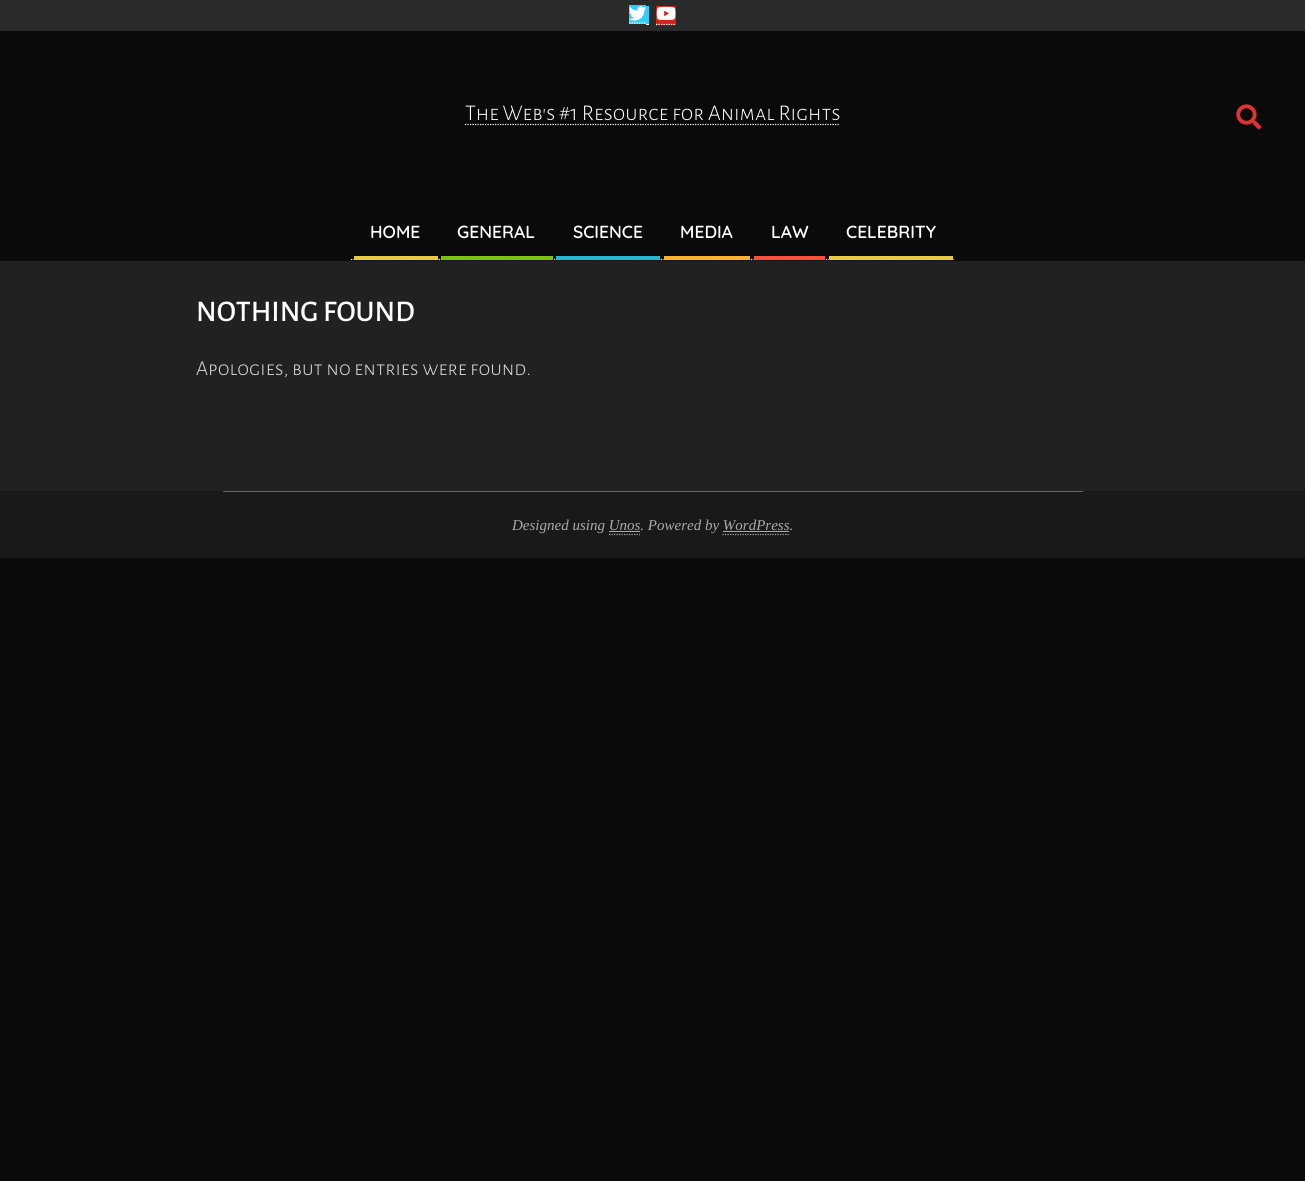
import math
import cairo


def use_color(cr, r, g, b):
  cr.set_source_rgb(r / 255, g / 255, b / 255)

def text(cr, x, y, s, family, size, color, bold=False, italic=False):
  cr.select_font_face(family, cairo.FONT_SLANT_ITALIC if italic else cairo.FONT_SLANT_NORMAL, cairo.FONT_WEIGHT_BOLD if bold else cairo.FONT_WEIGHT_NORMAL)
  cr.set_font_size(size)
  use_color(cr, *color)
  cr.move_to(x, y)
  cr.show_text(s)

def box(cr, x, y, w, h, *color):
  use_color(cr, *color)
  cr.rectangle(x, y, w, h)
  cr.fill()

def picture(cr, path, x, y, w, h):
  cr.save()
  cr.set_source_surface(cairo.ImageSurface.create_from_png(path), x, y)
  cr.rectangle(x, y, w, h)
  cr.fill()
  cr.restore()

def draw(cr):
  use_color(cr, 10, 10, 10)
  cr.paint()
  box(cr, 0, 0, 1305, 31, 42, 42, 42)
  box(cr, 629, 5, 17, 19, 50, 204, 254)
  cr.new_path()
  cr.move_to(629, 23)
  cr.line_to(646, 23)
  use_color(cr, 255, 255, 255)
  cr.set_line_width(1.2)
  cr.set_dash([1.25, 1.25])
  cr.stroke()
  box(cr, 646, 6, 3, 19, 50, 204, 254)
  box(cr, 646, 24, 3, 1, 255, 255, 255)
  picture(cr, "img_01.png", 629, 6, 18, 15)
  box(cr, 656, 6, 20, 19, 212, 35, 30)
  cr.new_path()
  cr.move_to(656, 24.5)
  cr.line_to(676, 24.5)
  use_color(cr, 255, 255, 255)
  cr.stroke()
  picture(cr, "img_02.png", 656, 6, 20, 14)
  cr.new_path()
  cr.move_to(465, 124.5)
  cr.line_to(840, 124.5)
  cr.stroke()
  picture(cr, "img_03.png", 1236, 104, 26, 26)
  cr.new_path()
  cr.move_to(351, 259.5)
  cr.line_to(439, 259.5)
  cr.stroke()
  box(cr, 354, 256, 84, 4, 233, 203, 66)
  cr.new_path()
  cr.move_to(439, 259.5)
  cr.line_to(554, 259.5)
  use_color(cr, 255, 255, 255)
  cr.stroke()
  box(cr, 441, 256, 112, 4, 125, 194, 15)
  cr.new_path()
  cr.move_to(554, 259.5)
  cr.line_to(661, 259.5)
  use_color(cr, 255, 255, 255)
  cr.stroke()
  box(cr, 556, 256, 104, 4, 37, 183, 209)
  cr.new_path()
  cr.move_to(661, 259.5)
  cr.line_to(751, 259.5)
  use_color(cr, 255, 255, 255)
  cr.stroke()
  box(cr, 664, 256, 86, 4, 255, 178, 45)
  cr.new_path()
  cr.move_to(751, 259.5)
  cr.line_to(826, 259.5)
  use_color(cr, 255, 255, 255)
  cr.stroke()
  box(cr, 754, 256, 71, 4, 255, 80, 60)
  cr.new_path()
  cr.move_to(826, 259.5)
  cr.line_to(954, 259.5)
  use_color(cr, 255, 255, 255)
  cr.stroke()
  box(cr, 829, 256, 124, 4, 233, 203, 66)
  box(cr, 0, 261, 1305, 230, 33, 33, 33)
  box(cr, 0, 491, 1305, 67, 25, 25, 25)
  box(cr, 223, 491, 860, 1, 101, 101, 101)
  box(cr, 609, 531, 31, 1, 170, 170, 170)
  box(cr, 723, 531, 66, 1, 170, 170, 170)
  cr.new_path()
  cr.move_to(609, 534.5)
  cr.line_to(640, 534.5)
  cr.stroke()
  cr.new_path()
  cr.move_to(722.5, 534.5)
  cr.line_to(789, 534.5)
  cr.stroke()
  text(cr, 465, 120, "The Web's #1 Resource for Animal Rights", "Alegreya Sans SC Light", 22.5, (255, 255, 255))
  text(cr, 370, 238, "HOME", "Quicksand SemiBold", 17.5, (255, 255, 255))
  text(cr, 457, 238, "GENERAL", "Quicksand SemiBold", 17.5, (255, 255, 255))
  text(cr, 573, 238, "SCIENCE", "Quicksand SemiBold", 17.5, (255, 255, 255))
  text(cr, 680, 238, "MEDIA", "Quicksand SemiBold", 17.5, (255, 255, 255))
  text(cr, 771, 238, "LAW", "Quicksand SemiBold", 17.5, (255, 255, 255))
  text(cr, 846, 238, "CELEBRITY", "Quicksand SemiBold", 17.5, (255, 255, 255))
  text(cr, 196, 321, "NOTHING FOUND", "Alegreya Sans Medium", 30, (255, 255, 255))
  text(cr, 196, 375, "Apologies, but no entries were found.", "Alegreya Sans SC Light", 21.25, (221, 221, 221))
  text(cr, 512, 530, "Designed using Unos. Powered by WordPress.", "Liberation Serif", 15, (170, 170, 170), italic=True)


surface = cairo.ImageSurface(cairo.FORMAT_RGB24, 1305, 1181)
cr = cairo.Context(surface)
options = cairo.FontOptions()
options.set_hint_metrics(cairo.HINT_METRICS_OFF)
options.set_hint_style(cairo.HINT_STYLE_NONE)
cr.set_font_options(options)
cr.set_miter_limit(4)
draw(cr)
surface.write_to_png("out.png")
